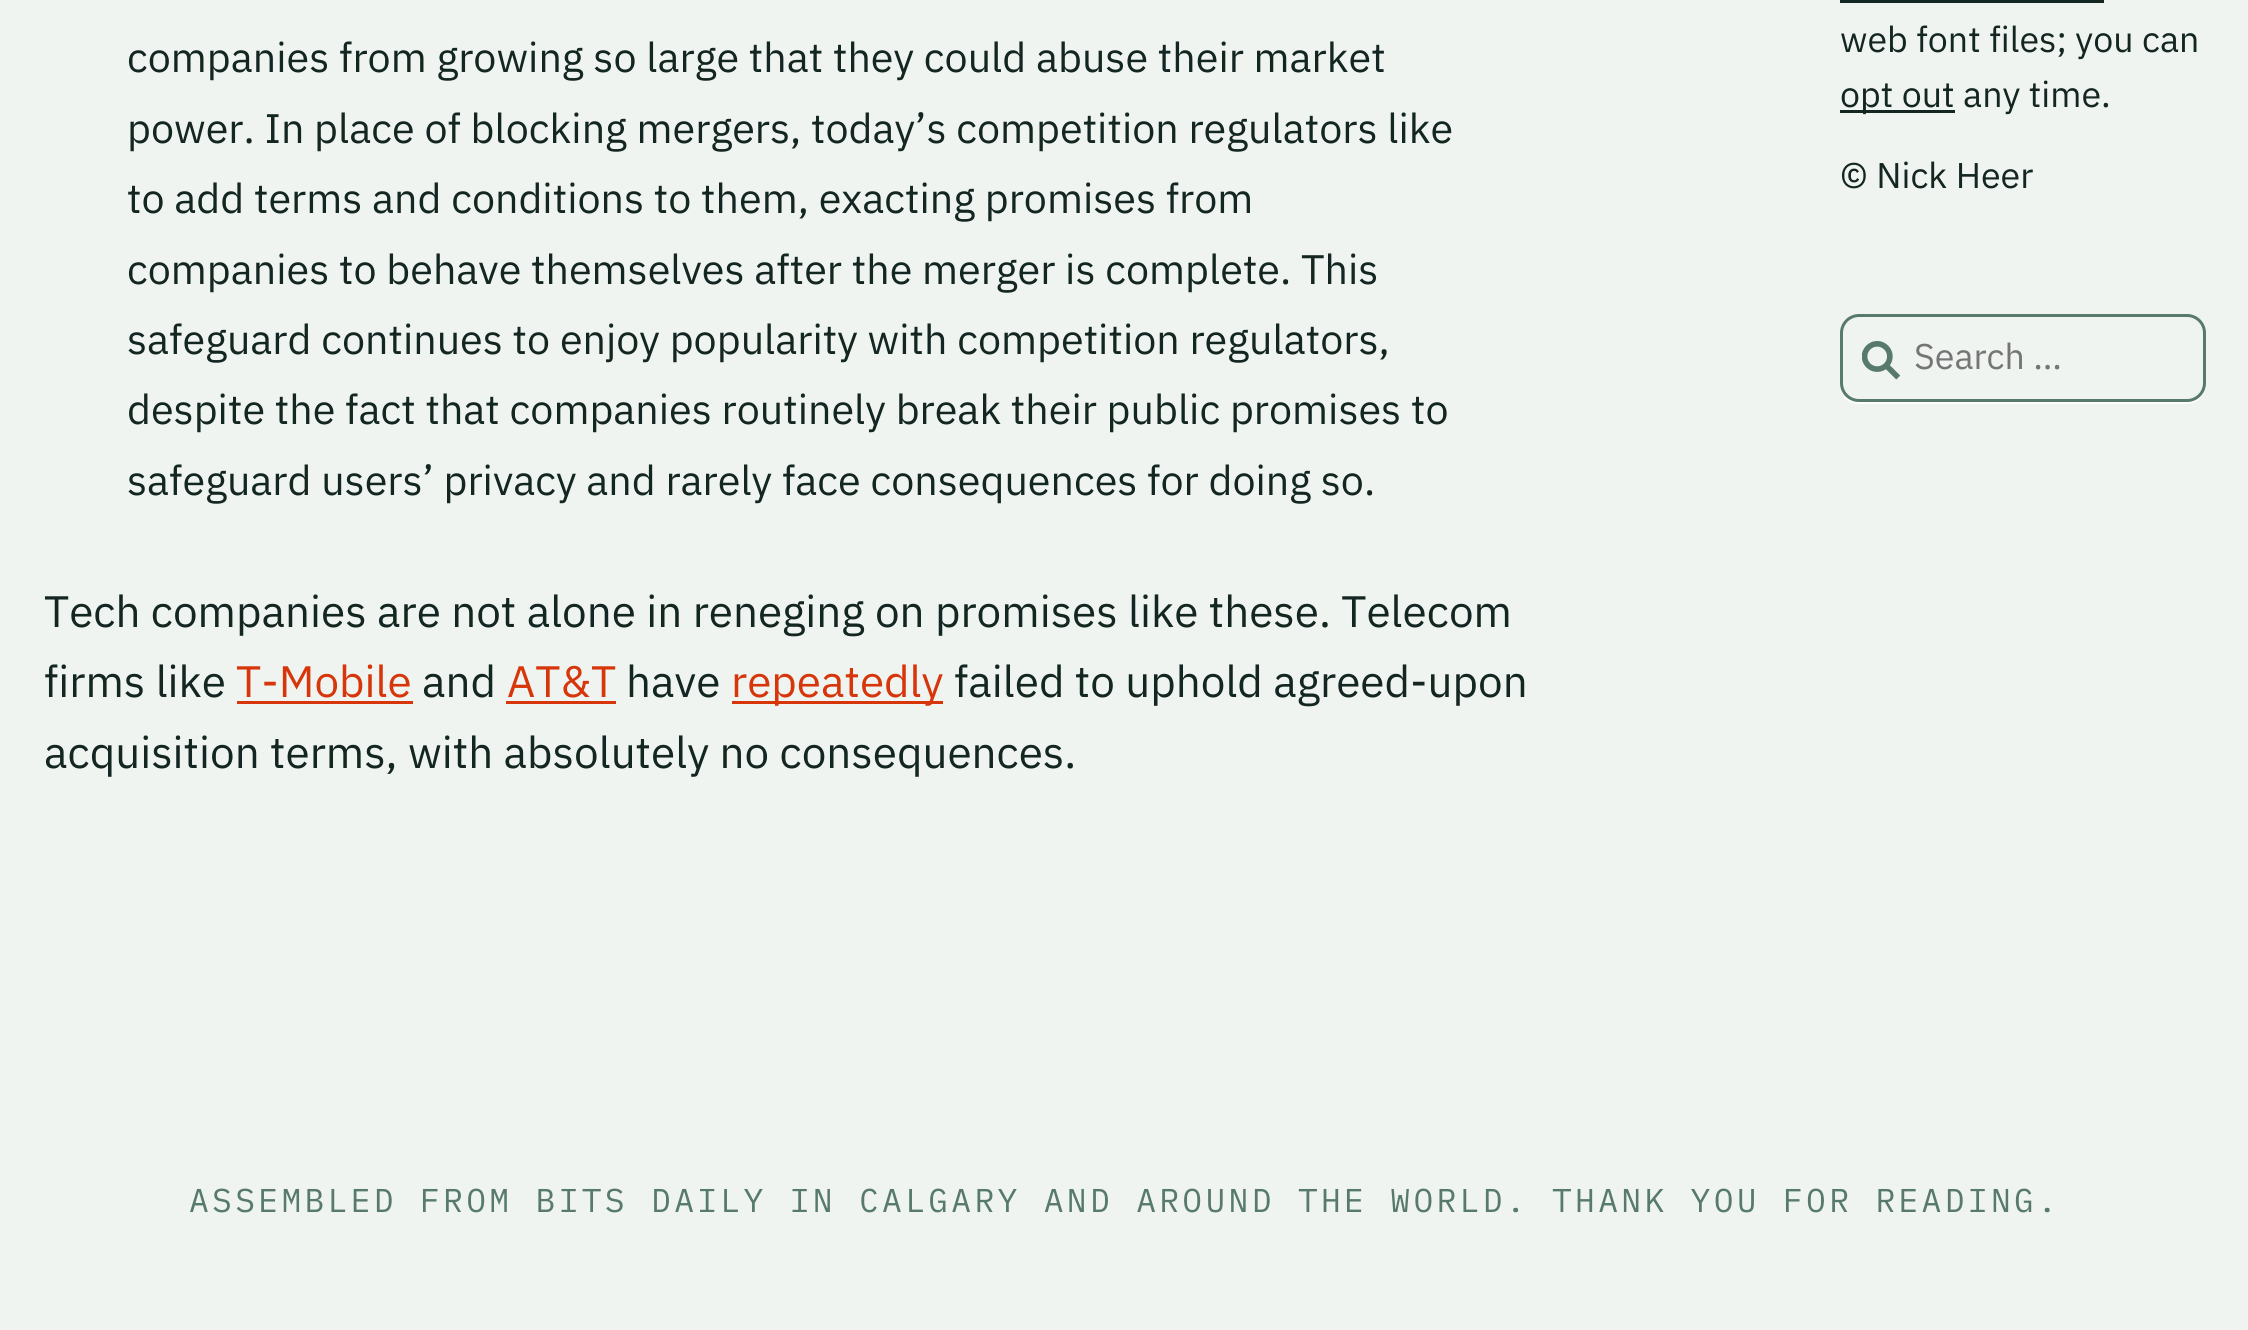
import math
import cairo


def use_color(cr, r, g, b):
  cr.set_source_rgb(r / 255, g / 255, b / 255)

def text(cr, x, y, s, family, size, color, bold=False, italic=False):
  cr.select_font_face(family, cairo.FONT_SLANT_ITALIC if italic else cairo.FONT_SLANT_NORMAL, cairo.FONT_WEIGHT_BOLD if bold else cairo.FONT_WEIGHT_NORMAL)
  cr.set_font_size(size)
  use_color(cr, *color)
  cr.move_to(x, y)
  cr.show_text(s)

def spaced_text(cr, x, y, s, letter, word):
  cr.move_to(x, y)
  for ch in s:
    cr.show_text(ch)
    cr.rel_move_to(letter + word * (ch == ' '), 0)

def box(cr, x, y, w, h, *color):
  use_color(cr, *color)
  cr.rectangle(x, y, w, h)
  cr.fill()

def round_rect(cr, x, y, w, h, r):
  cr.new_sub_path()
  for i, (u, v) in enumerate([(x + w - r, y + h - r), (x + r, y + h - r), (x + r, y + r), (x + w - r, y + r)]):
    cr.arc(u, v, r, i * math.pi / 2, (i + 1) * math.pi / 2)
  cr.close_path()

def picture(cr, path, x, y, w, h):
  cr.save()
  cr.set_source_surface(cairo.ImageSurface.create_from_png(path), x, y)
  cr.rectangle(x, y, w, h)
  cr.fill()
  cr.restore()

def draw(cr):
  use_color(cr, 239, 244, 241)
  cr.paint()
  box(cr, 237, 701, 176, 3, 215, 53, 10)
  box(cr, 506, 701, 110, 3, 215, 53, 10)
  box(cr, 732, 701, 211, 3, 215, 53, 10)
  box(cr, 1840, 0, 264, 3, 20, 38, 33)
  box(cr, 1840, 110, 115, 3, 20, 38, 33)
  use_color(cr, 255, 255, 255)
  cr.new_path()
  cr.move_to(1840, 387)
  cr.curve_to(1841, 397, 1849, 404, 1859, 404)
  cr.line_to(2187, 404)
  cr.curve_to(2197, 404, 2206, 395, 2206, 385)
  cr.line_to(2206, 335)
  cr.line_to(2205, 331)
  cr.line_to(2206, 384)
  cr.curve_to(2206, 393, 2197, 402, 2188, 402)
  cr.line_to(1858, 402)
  cr.curve_to(1849, 402, 1842, 395, 1840, 387)
  cr.close_path()
  cr.fill()
  use_color(cr, 239, 244, 241)
  round_rect(cr, 1840, 314, 366, 88, 19)
  cr.fill()
  picture(cr, "img_01.png", 1862, 341, 38, 39)
  round_rect(cr, 1841.5, 315.5, 363, 85, 17.5)
  use_color(cr, 87, 122, 107)
  cr.set_line_width(3)
  cr.stroke()
  text(cr, 127, 72, "companies from growing so large that they could abuse their market", "IBM Plex Sans", 41.25, (20, 38, 33))
  text(cr, 127, 143, "power. In place of blocking mergers, today’s competition regulators like", "IBM Plex Sans", 41.25, (20, 38, 33))
  text(cr, 127, 213, "to add terms and conditions to them, exacting promises from", "IBM Plex Sans", 41.25, (20, 38, 33))
  text(cr, 127, 284, "companies to behave themselves after the merger is complete. This", "IBM Plex Sans", 41.25, (20, 38, 33))
  text(cr, 127, 354, "safeguard continues to enjoy popularity with competition regulators,", "IBM Plex Sans", 41.25, (20, 38, 33))
  text(cr, 127, 424, "despite the fact that companies routinely break their public promises to", "IBM Plex Sans", 41.25, (20, 38, 33))
  text(cr, 127, 495, "safeguard users’ privacy and rarely face consequences for doing so.", "IBM Plex Sans", 41.25, (20, 38, 33))
  text(cr, 44, 627, "Tech companies are not alone in reneging on promises like these. Telecom", "IBM Plex Sans", 44, (20, 38, 33))
  text(cr, 44, 697, "firms like", "IBM Plex Sans", 44, (20, 38, 33))
  text(cr, 236, 697, "T-Mobile", "IBM Plex Sans", 44, (215, 53, 10))
  text(cr, 422, 697, "and", "IBM Plex Sans", 44, (20, 38, 33))
  text(cr, 507, 697, "AT&T", "IBM Plex Sans", 44, (215, 53, 10))
  text(cr, 626, 697, "have", "IBM Plex Sans", 44, (20, 38, 33))
  text(cr, 731, 697, "repeatedly", "IBM Plex Sans", 44, (215, 53, 10))
  text(cr, 954, 697, "failed to uphold agreed-upon", "IBM Plex Sans", 44, (20, 38, 33))
  text(cr, 44, 768, "acquisition terms, with absolutely no consequences.", "IBM Plex Sans", 44, (20, 38, 33))
  text(cr, 1840, 52, "web font files; you can", "IBM Plex Sans", 35.75, (20, 38, 33))
  text(cr, 1840, 107, "opt out any time.", "IBM Plex Sans", 35.75, (20, 38, 33))
  text(cr, 1840, 188, "© Nick Heer", "IBM Plex Sans", 35.75, (20, 38, 33))
  text(cr, 1914, 369, "Search …", "IBM Plex Sans", 35.75, (117, 117, 117))
  cr.select_font_face("IBM Plex Mono")
  cr.set_font_size(33)
  use_color(cr, 87, 122, 107)
  spaced_text(cr, 189, 1212, "ASSEMBLED FROM BITS DAILY IN CALGARY AND AROUND THE WORLD. THANK YOU FOR READING.", 3.3, 0)


surface = cairo.ImageSurface(cairo.FORMAT_RGB24, 2248, 1330)
cr = cairo.Context(surface)
options = cairo.FontOptions()
options.set_hint_metrics(cairo.HINT_METRICS_OFF)
options.set_hint_style(cairo.HINT_STYLE_NONE)
cr.set_font_options(options)
cr.set_miter_limit(4)
draw(cr)
surface.write_to_png("out.png")
